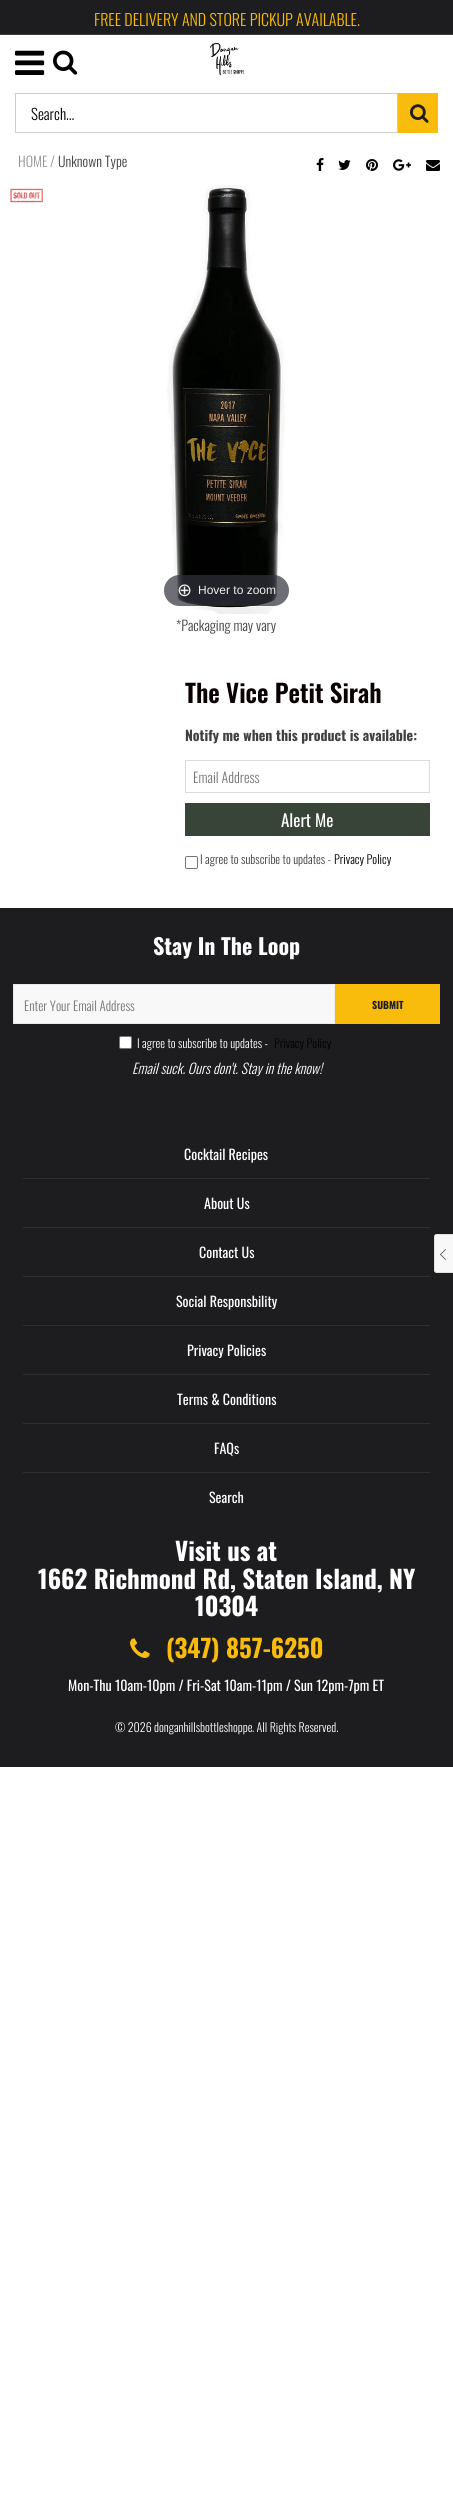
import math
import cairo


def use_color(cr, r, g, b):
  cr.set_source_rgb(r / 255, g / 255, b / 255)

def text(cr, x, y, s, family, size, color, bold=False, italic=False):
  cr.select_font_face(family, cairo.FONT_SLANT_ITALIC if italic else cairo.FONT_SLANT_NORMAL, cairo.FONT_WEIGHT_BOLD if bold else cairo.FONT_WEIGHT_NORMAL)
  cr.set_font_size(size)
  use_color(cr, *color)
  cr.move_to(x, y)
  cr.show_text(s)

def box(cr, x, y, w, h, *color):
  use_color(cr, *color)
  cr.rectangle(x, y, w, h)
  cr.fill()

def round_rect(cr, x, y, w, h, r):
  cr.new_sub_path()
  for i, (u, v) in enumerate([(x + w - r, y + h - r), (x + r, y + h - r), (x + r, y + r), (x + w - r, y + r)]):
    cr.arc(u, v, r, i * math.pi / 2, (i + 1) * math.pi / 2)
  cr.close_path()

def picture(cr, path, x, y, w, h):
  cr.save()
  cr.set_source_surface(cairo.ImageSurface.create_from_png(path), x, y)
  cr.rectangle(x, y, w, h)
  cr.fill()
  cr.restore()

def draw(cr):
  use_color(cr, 255, 255, 255)
  cr.paint()
  box(cr, 0, 0, 453, 34, 29, 29, 31)
  box(cr, 0, 34, 453, 1, 59, 59, 59)
  picture(cr, "img_01.png", 15, 50, 30, 25)
  picture(cr, "img_02.png", 53, 50, 25, 25)
  picture(cr, "img_03.png", 210, 42, 35, 34)
  cr.rectangle(15.5, 93.5, 382, 39)
  use_color(cr, 204, 204, 204)
  cr.set_line_width(1)
  cr.stroke()
  box(cr, 398, 93, 40, 40, 249, 188, 12)
  picture(cr, "img_04.png", 410, 104, 19, 19)
  picture(cr, "img_05.png", 316, 158, 8, 13)
  picture(cr, "img_06.png", 338, 160, 13, 10)
  picture(cr, "img_07.png", 366, 159, 12, 12)
  picture(cr, "img_08.png", 393, 159, 18, 12)
  picture(cr, "img_09.png", 426, 160, 14, 11)
  picture(cr, "img_10.png", 10, 188, 34, 15)
  picture(cr, "img_11.png", 166, 185, 119, 429)
  cr.set_source_rgba(0.192, 0.2, 0.239, 0.7)
  round_rect(cr, 164, 575, 125, 31, 15.5)
  cr.fill()
  cr.rectangle(185.5, 760.5, 244, 32)
  use_color(cr, 221, 220, 220)
  cr.stroke()
  box(cr, 185, 803, 245, 33, 57, 68, 57)
  round_rect(cr, 185.5, 856.5, 12, 12, 1.5)
  use_color(cr, 118, 118, 118)
  cr.stroke()
  box(cr, 0, 908, 453, 859, 29, 29, 31)
  use_color(cr, 248, 248, 248)
  cr.new_path()
  cr.move_to(437, 1234)
  cr.line_to(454, 1234)
  cr.line_to(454, 1273)
  cr.line_to(437, 1273)
  cr.curve_to(435.5, 1273, 434, 1271.5, 434, 1270)
  cr.line_to(434, 1237)
  cr.curve_to(434, 1235.5, 435.5, 1234, 437, 1234)
  cr.close_path()
  cr.fill()
  use_color(cr, 225, 225, 225)
  cr.set_fill_rule(cairo.FILL_RULE_EVEN_ODD)
  cr.new_path()
  cr.move_to(437, 1234)
  cr.line_to(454, 1234)
  cr.line_to(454, 1273)
  cr.line_to(437, 1273)
  cr.curve_to(435.5, 1273, 434, 1271.5, 434, 1270)
  cr.line_to(434, 1237)
  cr.curve_to(434, 1235.5, 435.5, 1234, 437, 1234)
  cr.close_path()
  cr.move_to(437, 1235)
  cr.line_to(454, 1235)
  cr.line_to(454, 1272)
  cr.line_to(437, 1272)
  cr.curve_to(436, 1272, 435, 1271, 435, 1270)
  cr.line_to(435, 1237)
  cr.curve_to(435, 1236, 436, 1235, 437, 1235)
  cr.close_path()
  cr.fill()
  use_color(cr, 65, 65, 65)
  cr.set_fill_rule(cairo.FILL_RULE_WINDING)
  cr.new_path()
  cr.move_to(440, 1254.5)
  cr.line_to(445.5, 1249)
  cr.line_to(446, 1249.5)
  cr.line_to(440.5, 1255)
  cr.close_path()
  cr.fill()
  cr.new_path()
  cr.move_to(440, 1254.5)
  cr.line_to(440.5, 1254)
  cr.line_to(446, 1259.5)
  cr.line_to(445.5, 1260)
  cr.close_path()
  cr.fill()
  use_color(cr, 248, 248, 248)
  cr.rectangle(13.5, 984.5, 321, 39)
  cr.fill_preserve()
  use_color(cr, 235, 235, 235)
  cr.stroke()
  box(cr, 335, 984, 105, 40, 249, 188, 12)
  use_color(cr, 255, 255, 255)
  round_rect(cr, 119.5, 1036.5, 12, 12, 1.5)
  cr.fill_preserve()
  use_color(cr, 118, 118, 118)
  cr.stroke()
  box(cr, 23, 1178, 407, 1, 47, 47, 49)
  box(cr, 23, 1227, 407, 1, 47, 47, 49)
  box(cr, 23, 1276, 407, 1, 47, 47, 49)
  box(cr, 23, 1325, 407, 1, 47, 47, 49)
  box(cr, 23, 1374, 407, 1, 47, 47, 49)
  box(cr, 23, 1423, 407, 1, 47, 47, 49)
  box(cr, 23, 1472, 407, 1, 47, 47, 49)
  picture(cr, "img_12.png", 130, 1638, 20, 20)
  text(cr, 94, 26, "FREE DELIVERY AND STORE PICKUP AVAILABLE.", "Oswald Light", 16, (249, 188, 12))
  text(cr, 31, 120, "Search...", "Oswald Light", 15, (0, 0, 0))
  text(cr, 18, 167, "HOME", "Oswald Light", 14, (148, 148, 148))
  text(cr, 50, 167, "/", "Oswald Light", 14, (148, 148, 148))
  text(cr, 58, 167, "Unknown Type", "Oswald Light", 14, (65, 65, 65))
  text(cr, 177, 596, "⊕", "DejaVu Sans", 18, (238, 238, 238))
  text(cr, 198, 594, "Hover to zoom", "Liberation Sans", 12, (238, 238, 238))
  text(cr, 176, 631, "*Packaging may vary", "Oswald Light", 14, (65, 65, 65))
  text(cr, 185, 703, "The Vice Petit Sirah", "Oswald SemiBold", 25, (8, 0, 0))
  text(cr, 185, 741, "Notify me when this product is available:", "Oswald", 14, (65, 65, 65), bold=True)
  text(cr, 193, 783, "Email Address", "Oswald Light", 14, (117, 117, 117))
  text(cr, 281, 827, "Alert Me", "Oswald", 17, (255, 255, 255))
  text(cr, 200, 864, "I agree to subscribe to updates -", "Oswald Light", 12, (65, 65, 65))
  text(cr, 334, 864, "Privacy Policy", "Oswald Light", 12, (0, 0, 0))
  text(cr, 153, 955, "Stay In The Loop", "Oswald", 22, (255, 255, 255), bold=True)
  text(cr, 24, 1011, "Enter Your Email Address", "Oswald Light", 13, (117, 117, 117))
  text(cr, 372, 1009, "SUBMIT", "Oswald", 10, (29, 29, 31), bold=True)
  text(cr, 137, 1048, "I agree to subscribe to updates -", "Oswald Light", 12, (255, 255, 255))
  text(cr, 274, 1048, "Privacy Policy", "Oswald Light", 12, (0, 0, 0))
  text(cr, 132, 1074, "Email suck. Ours don't. Stay in the know!", "Oswald Light", 14, (255, 255, 255), italic=True)
  text(cr, 184, 1160, "Cocktail Recipes", "Oswald", 14, (255, 255, 255))
  text(cr, 204, 1209, "About Us", "Oswald", 14, (255, 255, 255))
  text(cr, 199, 1258, "Contact Us", "Oswald", 14, (255, 255, 255))
  text(cr, 176, 1307, "Social Responsbility", "Oswald", 14, (255, 255, 255))
  text(cr, 187, 1356, "Privacy Policies", "Oswald", 14, (255, 255, 255))
  text(cr, 177, 1405, "Terms & Conditions", "Oswald", 14, (255, 255, 255))
  text(cr, 214, 1454, "FAQs", "Oswald", 14, (255, 255, 255))
  text(cr, 209, 1503, "Search", "Oswald", 14, (255, 255, 255))
  text(cr, 175, 1561, "Visit us at", "Oswald", 25, (255, 255, 255), bold=True)
  text(cr, 38, 1589, "1662 Richmond Rd, Staten Island, NY", "Oswald", 25, (255, 255, 255), bold=True)
  text(cr, 195, 1616, "10304", "Oswald", 25, (255, 255, 255), bold=True)
  text(cr, 166, 1658, "(347) 857-6250", "Oswald", 25, (249, 188, 12), bold=True)
  text(cr, 68, 1691, "Mon-Thu 10am-10pm / Fri-Sat 10am-11pm / Sun 12pm-7pm ET", "Oswald", 14, (255, 255, 255))
  text(cr, 115, 1732, "© 2026 donganhillsbottleshoppe", "Oswald Light", 12, (255, 255, 255))
  text(cr, 252, 1732, ". All Rights Reserved.", "Oswald Light", 12, (255, 255, 255))


surface = cairo.ImageSurface(cairo.FORMAT_RGB24, 453, 2518)
cr = cairo.Context(surface)
options = cairo.FontOptions()
options.set_hint_metrics(cairo.HINT_METRICS_OFF)
options.set_hint_style(cairo.HINT_STYLE_NONE)
cr.set_font_options(options)
cr.set_miter_limit(4)
draw(cr)
surface.write_to_png("out.png")
